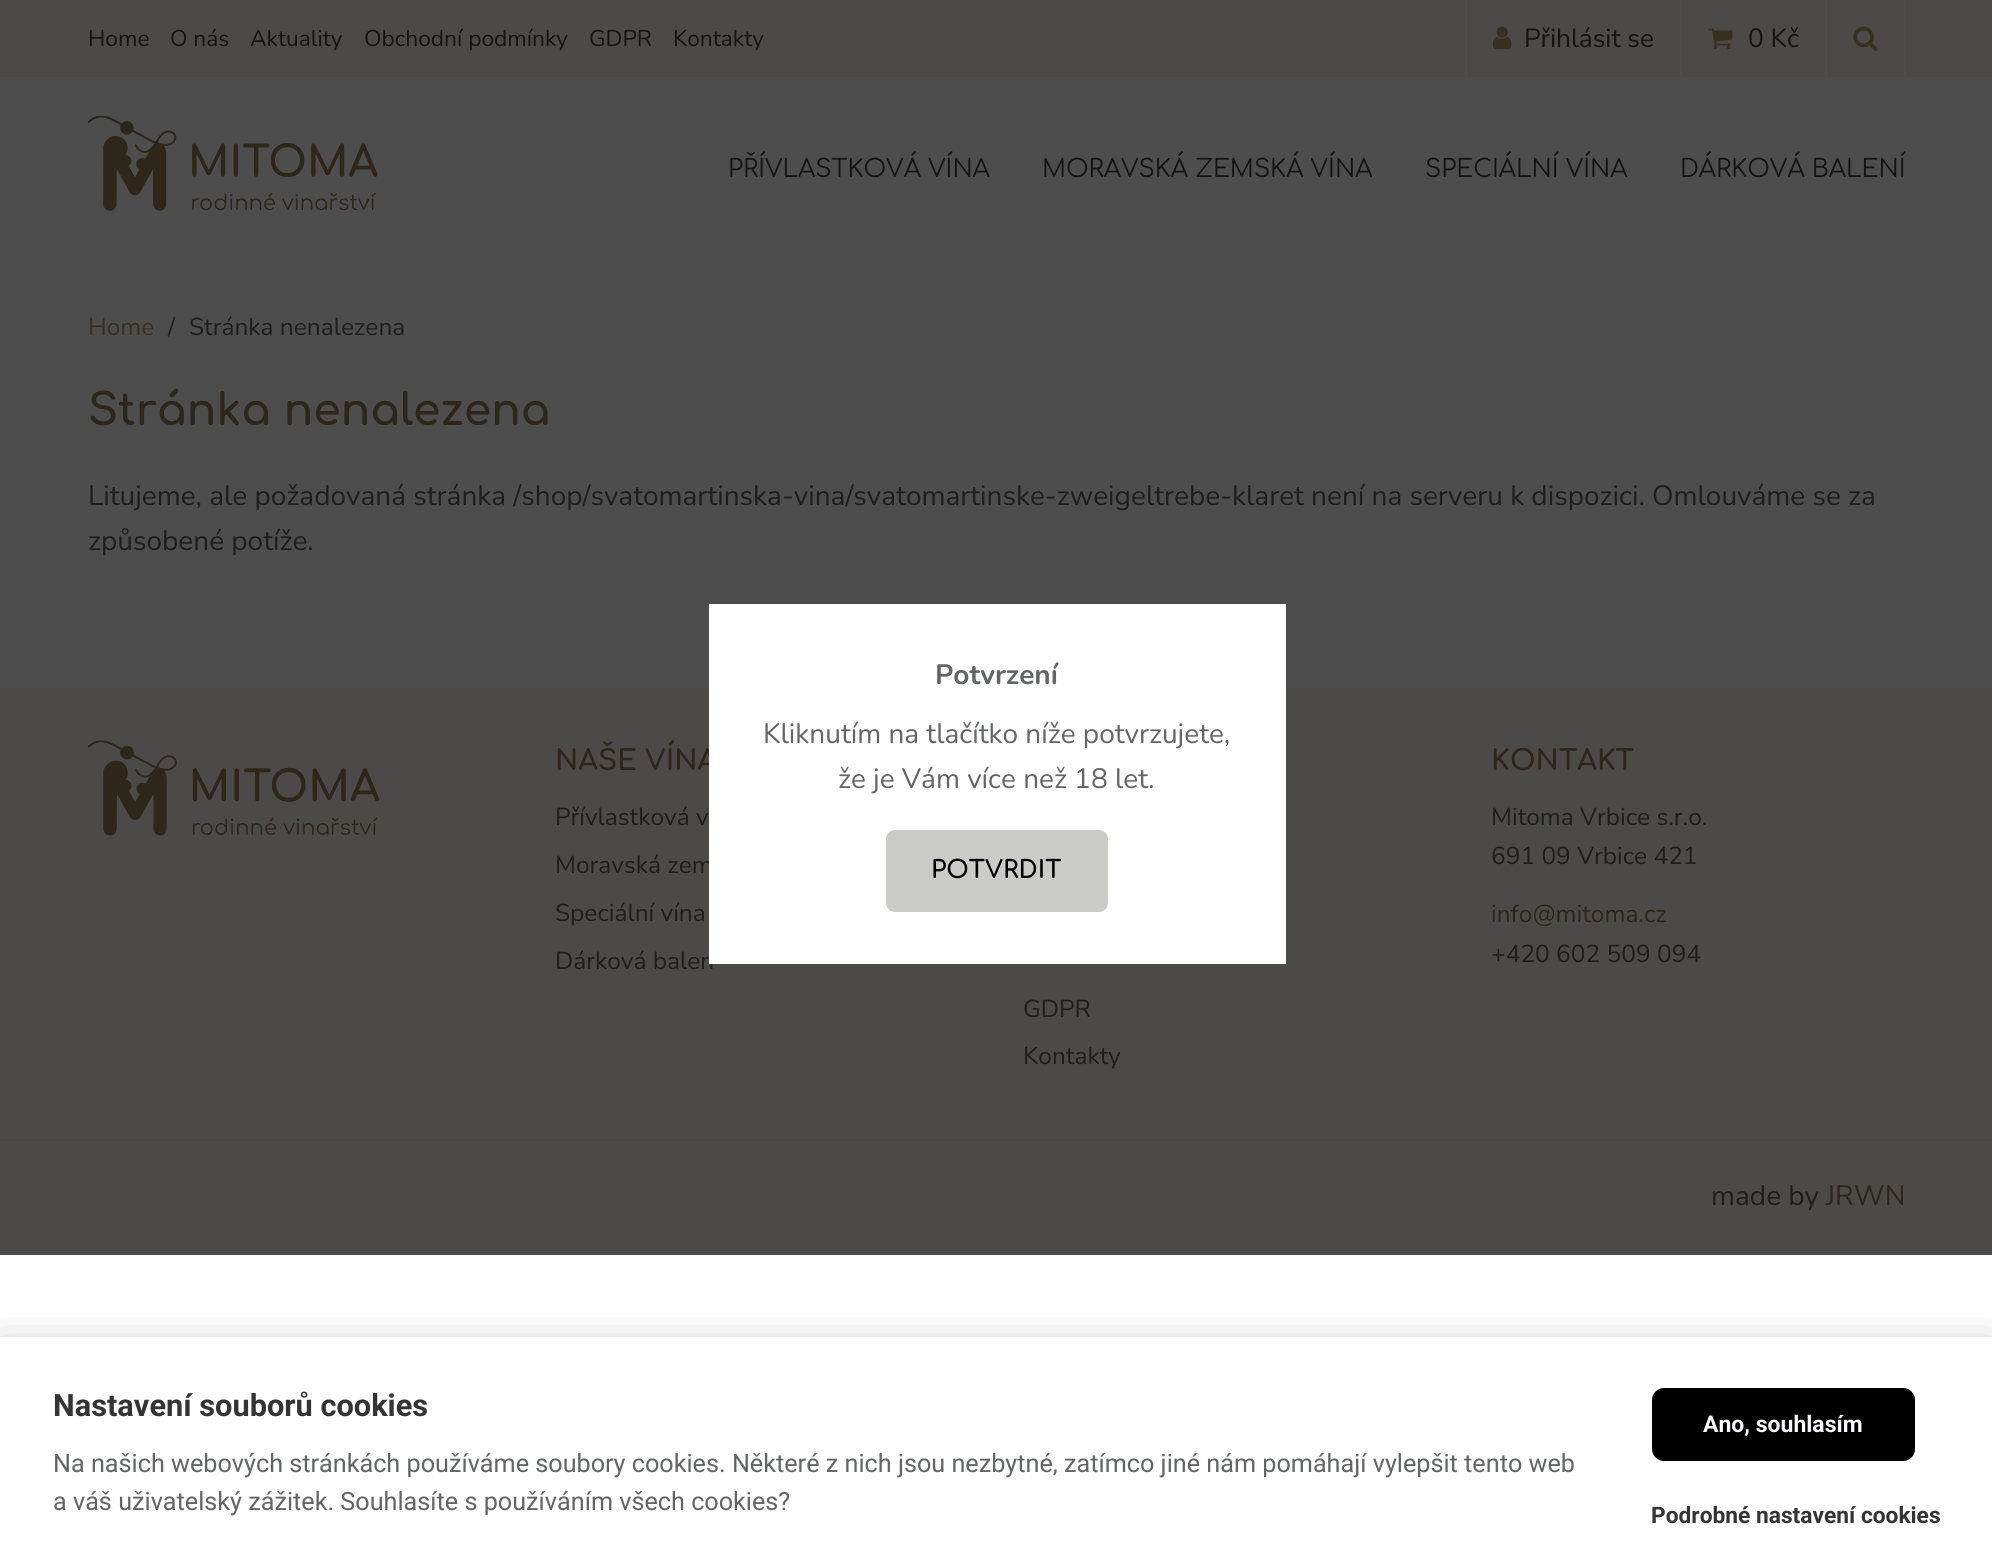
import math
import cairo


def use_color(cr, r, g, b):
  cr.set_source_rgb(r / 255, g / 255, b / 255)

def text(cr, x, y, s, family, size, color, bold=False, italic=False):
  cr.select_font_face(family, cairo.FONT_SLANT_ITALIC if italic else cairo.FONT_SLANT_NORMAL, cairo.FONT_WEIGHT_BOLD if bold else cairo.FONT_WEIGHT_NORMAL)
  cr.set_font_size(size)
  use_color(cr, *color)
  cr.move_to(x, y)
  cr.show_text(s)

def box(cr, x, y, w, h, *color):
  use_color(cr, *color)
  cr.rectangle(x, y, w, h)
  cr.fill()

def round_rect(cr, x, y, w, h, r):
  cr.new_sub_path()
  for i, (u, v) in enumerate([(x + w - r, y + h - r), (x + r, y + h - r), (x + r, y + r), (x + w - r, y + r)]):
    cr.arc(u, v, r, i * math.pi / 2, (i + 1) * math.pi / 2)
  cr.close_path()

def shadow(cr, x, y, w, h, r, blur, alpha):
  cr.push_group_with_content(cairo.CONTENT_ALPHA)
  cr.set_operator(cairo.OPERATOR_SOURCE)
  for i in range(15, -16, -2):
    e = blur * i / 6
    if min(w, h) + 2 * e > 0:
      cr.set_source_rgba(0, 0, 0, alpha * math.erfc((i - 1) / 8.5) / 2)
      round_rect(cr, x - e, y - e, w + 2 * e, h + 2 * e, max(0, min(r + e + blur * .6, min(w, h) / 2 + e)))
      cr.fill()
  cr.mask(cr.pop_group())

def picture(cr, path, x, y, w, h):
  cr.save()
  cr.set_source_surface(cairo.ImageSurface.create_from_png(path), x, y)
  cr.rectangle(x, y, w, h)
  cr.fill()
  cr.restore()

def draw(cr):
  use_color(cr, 255, 255, 255)
  cr.paint()
  box(cr, 0, 77, 1992, 611, 77, 77, 77)
  box(cr, 0, 0, 1992, 77, 75, 74, 73)
  box(cr, 1465, 0, 2, 77, 77, 77, 77)
  picture(cr, "img_01.png", 1492, 26, 20, 24)
  box(cr, 1680, 0, 2, 77, 77, 77, 77)
  picture(cr, "img_02.png", 1708, 28, 25, 22)
  box(cr, 1825, 0, 2, 77, 77, 77, 77)
  box(cr, 1904, 0, 2, 77, 77, 77, 77)
  picture(cr, "img_03.png", 1853, 26, 25, 25)
  picture(cr, "img_04.png", 88, 116, 290, 95)
  box(cr, 0, 688, 1992, 451, 75, 74, 73)
  picture(cr, "img_05.png", 88, 740, 292, 96)
  box(cr, 0, 1141, 1992, 114, 75, 74, 73)
  box(cr, 0, 1139, 1992, 2, 71, 71, 71)
  cr.save()
  cr.rectangle(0, 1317, 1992, 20)
  cr.clip()
  use_color(cr, 2, 2, 3)
  shadow(cr, 0, 1355, 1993, 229, 0, 26, 0.28)
  cr.restore()
  use_color(cr, 0, 0, 0)
  round_rect(cr, 1652, 1388, 263, 73, 12)
  cr.fill()
  text(cr, 88, 46, "Home", "Nunito", 22.75, (20, 20, 20))
  text(cr, 170, 46, "O nás", "Nunito", 22.75, (20, 20, 20))
  text(cr, 250, 46, "Aktuality", "Nunito", 22.75, (20, 20, 20))
  text(cr, 364, 46, "Obchodní podmínky", "Nunito", 22.75, (20, 20, 20))
  text(cr, 589, 46, "GDPR", "Nunito", 22.75, (20, 20, 20))
  text(cr, 673, 46, "Kontakty", "Nunito", 22.75, (20, 20, 20))
  text(cr, 1524, 47, "Přihlásit se", "Nunito", 26.25, (20, 20, 20))
  text(cr, 1748, 47, "0 Kč", "Nunito", 26.25, (20, 20, 20))
  text(cr, 728, 177, "PŘÍVLASTKOVÁ VÍNA", "Comfortaa", 24.5, (20, 20, 20))
  text(cr, 1042, 177, "MORAVSKÁ ZEMSKÁ VÍNA", "Comfortaa", 24.5, (20, 20, 20))
  text(cr, 1425, 177, "SPECIÁLNÍ VÍNA", "Comfortaa", 24.5, (20, 20, 20))
  text(cr, 1680, 177, "DÁRKOVÁ BALENÍ", "Comfortaa", 24.5, (20, 20, 20))
  text(cr, 88, 335, "Home", "Nunito", 24.5, (56, 48, 32))
  text(cr, 168, 335, "/", "Nunito", 24.5, (30, 30, 31))
  text(cr, 189, 335, "Stránka nenalezena", "Nunito", 24.5, (30, 30, 31))
  text(cr, 88, 425, "Stránka nenalezena", "Comfortaa", 43.75, (45, 38, 25), bold=True)
  text(cr, 88, 505, "Litujeme, ale požadovaná stránka /shop/svatomartinska-vina/svatomartinske-zweigeltrebe-klaret není na serveru k dispozici. Omlouváme se za", "Nunito", 28, (30, 30, 31))
  text(cr, 88, 550, "způsobené potíže.", "Nunito", 28, (30, 30, 31))
  text(cr, 555, 770, "NAŠE VÍNA", "Comfortaa", 28, (45, 38, 25), bold=True)
  text(cr, 555, 825, "Přívlastková v", "Nunito", 24.5, (30, 30, 31))
  text(cr, 555, 873, "Moravská zem", "Nunito", 24.5, (30, 30, 31))
  text(cr, 555, 921, "Speciální vína", "Nunito", 24.5, (30, 30, 31))
  text(cr, 555, 969, "Dárková balen", "Nunito", 24.5, (30, 30, 31))
  box(cr, 709, 604, 577, 360, 255, 255, 255)
  use_color(cr, 203, 203, 202)
  round_rect(cr, 888, 832, 218, 78, 7)
  cr.fill_preserve()
  cr.set_line_width(4)
  cr.stroke()
  text(cr, 931, 878, "POTVRDIT", "Comfortaa", 24.5, (0, 0, 0), bold=True)
  text(cr, 838, 788, "že je Vám více než 18 let.", "Nunito", 28, (99, 100, 102))
  text(cr, 763, 743, "Kliknutím na tlačítko níže potvrzujete,", "Nunito", 28, (99, 100, 102))
  text(cr, 935, 684, "Potvrzení", "Nunito", 28, (99, 100, 102), bold=True)
  text(cr, 1491, 770, "KONTAKT", "Comfortaa", 28, (45, 38, 25), bold=True)
  text(cr, 1491, 825, "Mitoma Vrbice s.r.o.", "Nunito", 24.5, (30, 30, 31))
  text(cr, 1491, 864, "691 09 Vrbice 421", "Nunito", 24.5, (30, 30, 31))
  text(cr, 1491, 922, "info@mitoma.cz", "Nunito", 24.5, (45, 38, 25))
  text(cr, 1491, 962, "+420 602 509 094", "Nunito", 24.5, (30, 30, 31))
  text(cr, 1023, 1017, "GDPR", "Nunito", 24.5, (30, 30, 31))
  text(cr, 1023, 1064, "Kontakty", "Nunito", 24.5, (30, 30, 31))
  text(cr, 1711, 1205, "made by", "Nunito", 28, (30, 30, 31))
  text(cr, 1826, 1205, "JRWN", "Nunito", 28, (45, 38, 25))
  text(cr, 53, 1416, "Nastavení souborů cookies", "Roboto", 30.75, (52, 52, 52), bold=True)
  text(cr, 53, 1472, "Na našich webových stránkách používáme soubory cookies. Některé z nich jsou nezbytné, zatímco jiné nám pomáhají vylepšit tento web", "Roboto", 25.2, (99, 100, 102))
  text(cr, 53, 1510, "a váš uživatelský zážitek. Souhlasíte s používáním všech cookies?", "Roboto", 25.2, (99, 100, 102))
  text(cr, 1703, 1432, "Ano, souhlasím", "Roboto", 23, (249, 250, 255), bold=True)
  text(cr, 1651, 1523, "Podrobné nastavení cookies", "Roboto", 22.75, (52, 52, 52), bold=True)


surface = cairo.ImageSurface(cairo.FORMAT_RGB24, 1992, 1565)
cr = cairo.Context(surface)
options = cairo.FontOptions()
options.set_hint_metrics(cairo.HINT_METRICS_OFF)
options.set_hint_style(cairo.HINT_STYLE_NONE)
cr.set_font_options(options)
cr.set_miter_limit(4)
draw(cr)
surface.write_to_png("out.png")
